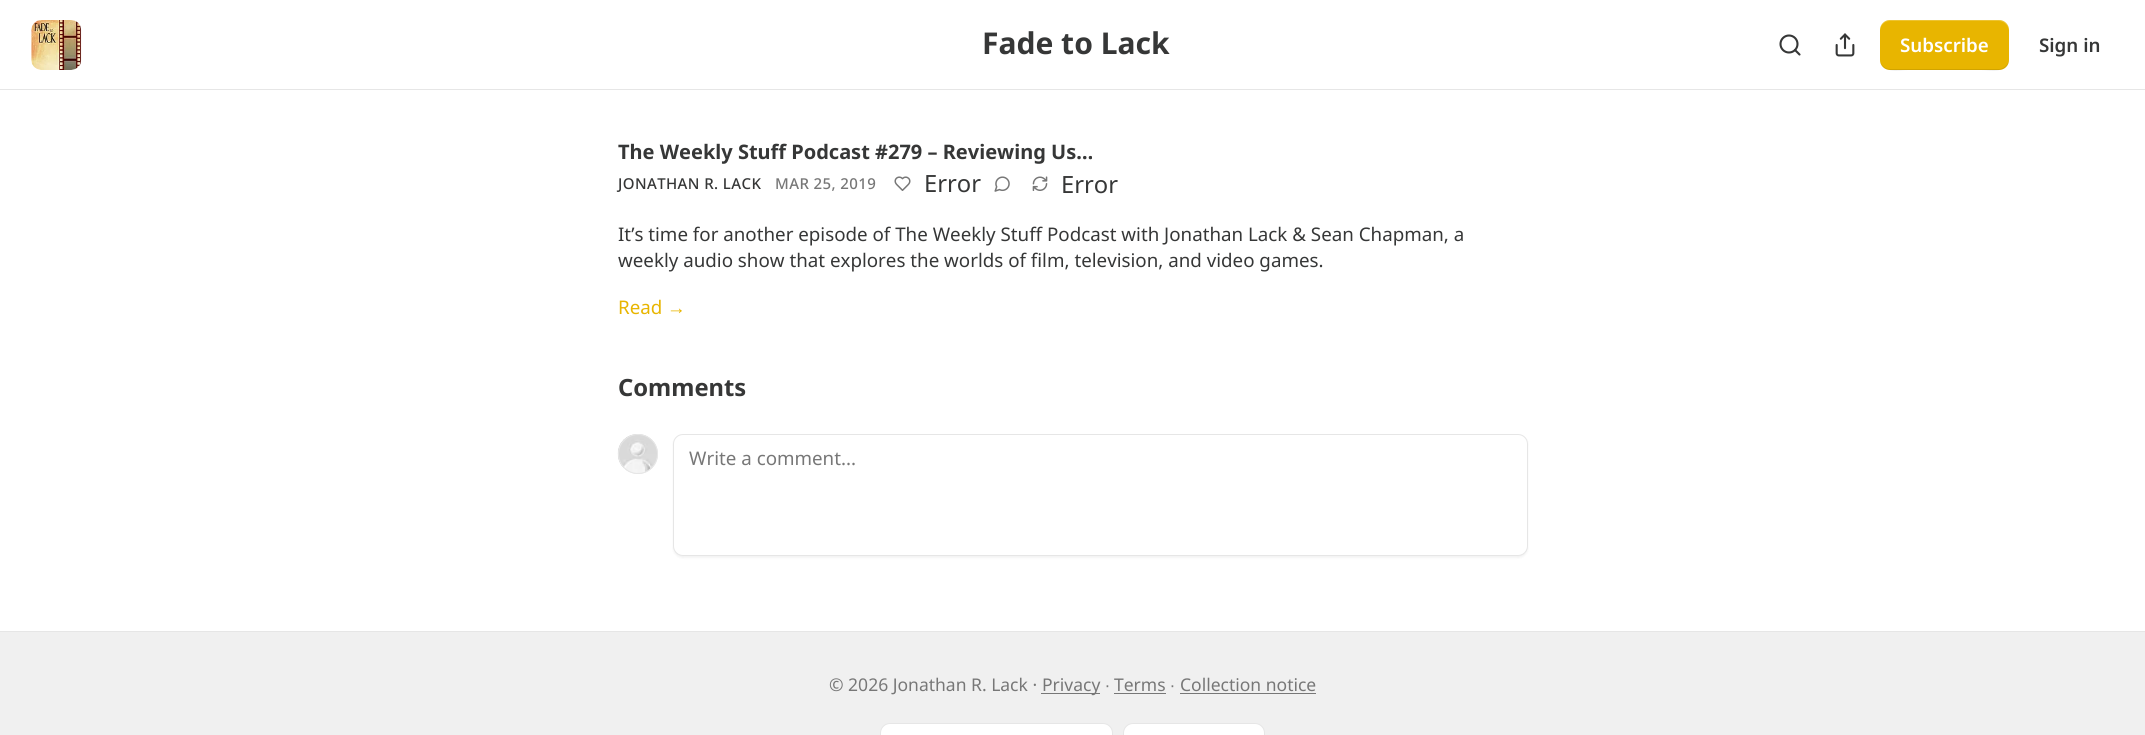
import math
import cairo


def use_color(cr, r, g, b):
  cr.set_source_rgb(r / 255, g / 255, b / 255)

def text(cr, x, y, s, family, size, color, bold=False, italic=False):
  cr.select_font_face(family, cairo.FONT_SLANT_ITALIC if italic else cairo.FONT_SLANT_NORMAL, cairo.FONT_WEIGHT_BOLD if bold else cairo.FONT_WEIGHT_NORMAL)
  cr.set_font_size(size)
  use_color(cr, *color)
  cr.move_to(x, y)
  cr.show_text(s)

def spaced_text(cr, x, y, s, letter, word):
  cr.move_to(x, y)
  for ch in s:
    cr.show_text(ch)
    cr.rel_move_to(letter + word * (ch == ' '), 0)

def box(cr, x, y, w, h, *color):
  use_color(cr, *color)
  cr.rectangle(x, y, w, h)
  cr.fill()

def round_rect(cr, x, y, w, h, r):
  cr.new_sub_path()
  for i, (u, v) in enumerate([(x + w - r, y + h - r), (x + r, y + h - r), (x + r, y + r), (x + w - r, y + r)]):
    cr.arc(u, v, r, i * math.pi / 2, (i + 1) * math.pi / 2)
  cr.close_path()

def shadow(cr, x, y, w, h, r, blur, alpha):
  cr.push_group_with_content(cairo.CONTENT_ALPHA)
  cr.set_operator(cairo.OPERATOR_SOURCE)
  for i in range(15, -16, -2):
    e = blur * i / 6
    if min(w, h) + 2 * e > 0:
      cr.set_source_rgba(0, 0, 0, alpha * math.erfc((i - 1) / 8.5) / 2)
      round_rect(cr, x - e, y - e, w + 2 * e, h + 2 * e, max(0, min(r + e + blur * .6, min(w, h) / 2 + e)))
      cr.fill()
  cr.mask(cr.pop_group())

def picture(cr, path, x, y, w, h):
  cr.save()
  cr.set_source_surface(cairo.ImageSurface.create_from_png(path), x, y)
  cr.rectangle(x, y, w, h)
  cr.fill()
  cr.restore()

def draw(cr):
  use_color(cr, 255, 255, 255)
  cr.paint()
  box(cr, 0, 89, 2145, 1, 230, 230, 230)
  picture(cr, "img_01.png", 31, 20, 51, 50)
  cr.arc(1789, 44, 8.5, 0, 2 * math.pi)
  use_color(cr, 54, 55, 55)
  cr.set_line_width(2.1)
  cr.stroke()
  cr.new_path()
  cr.move_to(1799.5, 54.5)
  cr.line_to(1795, 50)
  cr.set_line_cap(cairo.LINE_CAP_ROUND)
  cr.set_line_join(cairo.LINE_JOIN_ROUND)
  cr.stroke()
  picture(cr, "img_02.png", 1835, 33, 20, 24)
  use_color(cr, 232, 181, 0)
  round_rect(cr, 1880, 20, 129, 50, 10)
  cr.fill()
  cr.set_source_rgba(0, 0, 0, 0.1)
  cr.new_path()
  cr.move_to(1880, 59)
  cr.curve_to(1880, 74, 1898, 70, 1908, 70)
  cr.line_to(1981, 70)
  cr.curve_to(1991, 70, 2009, 74, 2009, 59)
  cr.curve_to(2009, 64, 2004, 69, 1999, 69)
  cr.line_to(1890, 69)
  cr.curve_to(1884, 69, 1880, 64, 1880, 59)
  cr.close_path()
  cr.fill()
  cr.set_source_rgba(1, 1, 1, 0.2)
  cr.new_path()
  cr.move_to(1890, 21)
  cr.line_to(1999, 21)
  cr.curve_to(2004, 21, 2009, 26, 2009, 31)
  cr.curve_to(2009, 16, 1991, 20, 1981, 20)
  cr.line_to(1908, 20)
  cr.curve_to(1898, 20, 1880, 16, 1880, 31)
  cr.curve_to(1880, 26, 1884, 21, 1890, 21)
  cr.close_path()
  cr.fill()
  picture(cr, "img_03.png", 894, 176, 17, 15)
  picture(cr, "img_04.png", 994, 176, 16, 16)
  picture(cr, "img_05.png", 1032, 176, 16, 15)
  cr.arc(638, 454, 19.5, 0, 2 * math.pi)
  use_color(cr, 230, 230, 230)
  cr.set_line_width(1)
  cr.set_line_cap(cairo.LINE_CAP_BUTT)
  cr.set_line_join(cairo.LINE_JOIN_MITER)
  cr.stroke()
  picture(cr, "img_06.png", 617, 434, 40, 39)
  cr.arc(638, 454, 19.5, 0, 2 * math.pi)
  cr.stroke()
  use_color(cr, 0, 0, 0)
  shadow(cr, 673, 435, 855, 123, 10, 1, 0.05)
  use_color(cr, 255, 255, 255)
  round_rect(cr, 673.5, 434.5, 854, 121, 9.5)
  cr.fill_preserve()
  use_color(cr, 230, 230, 230)
  cr.stroke()
  box(cr, 0, 632, 2145, 103, 240, 240, 240)
  box(cr, 0, 631, 2145, 1, 230, 230, 230)
  box(cr, 1041, 693, 59, 1, 119, 119, 119)
  box(cr, 1114, 693, 52, 1, 119, 119, 119)
  box(cr, 1180, 693, 136, 1, 119, 119, 119)
  use_color(cr, 255, 255, 255)
  round_rect(cr, 880.5, 723.5, 232, 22, 9.5)
  cr.fill_preserve()
  use_color(cr, 230, 230, 230)
  cr.stroke()
  use_color(cr, 255, 255, 255)
  round_rect(cr, 1123.5, 723.5, 141, 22, 9.5)
  cr.fill_preserve()
  use_color(cr, 230, 230, 230)
  cr.stroke()
  text(cr, 982, 54, "Fade to Lack", "Noto Sans", 30, (54, 55, 55), bold=True)
  text(cr, 1900, 52, "Subscribe", "Noto Sans SemiBold", 18.75, (255, 255, 255))
  text(cr, 2039, 52, "Sign in", "Noto Sans SemiBold", 18.75, (54, 55, 55))
  text(cr, 618, 159, "The Weekly Stuff Podcast #279 – Reviewing Us…", "Noto Sans", 20, (54, 55, 55), bold=True)
  cr.select_font_face("Noto Sans Medium")
  cr.set_font_size(15)
  spaced_text(cr, 618, 189, "JONATHAN R. LACK", 0.4, 0)
  use_color(cr, 119, 119, 119)
  spaced_text(cr, 775, 189, "MAR 25, 2019", 0.4, 0)
  text(cr, 924, 192, "Error", "Noto Sans", 23.75, (54, 55, 55))
  text(cr, 1061, 193, "Error", "Noto Sans", 23.75, (54, 55, 55))
  text(cr, 618, 241, "It’s time for another episode of The Weekly Stuff Podcast with Jonathan Lack & Sean Chapman, a", "Noto Sans", 18.75, (54, 55, 55))
  text(cr, 618, 267, "weekly audio show that explores the worlds of film, television, and video games.", "Noto Sans", 18.75, (54, 55, 55))
  text(cr, 618, 314, "Read", "Noto Sans", 18.75, (232, 181, 0))
  text(cr, 667, 314, "→", "Liberation Sans", 18.75, (232, 181, 0))
  text(cr, 618, 396, "Comments", "Noto Sans", 23.75, (54, 55, 55), bold=True)
  text(cr, 689, 465, "Write a comment...", "Noto Sans", 18.75, (119, 119, 119))
  text(cr, 829, 691, "© 2026 Jonathan R. Lack ·", "Noto Sans", 17.5, (119, 119, 119))
  text(cr, 1042, 691, "Privacy", "Noto Sans", 17.5, (119, 119, 119))
  text(cr, 1105, 691, "∙", "Liberation Sans", 17.5, (119, 119, 119))
  text(cr, 1114, 691, "Terms", "Noto Sans", 17.5, (119, 119, 119))
  text(cr, 1170, 691, "∙", "Liberation Sans", 17.5, (119, 119, 119))
  text(cr, 1180, 691, "Collection notice", "Noto Sans", 17.5, (119, 119, 119))


surface = cairo.ImageSurface(cairo.FORMAT_RGB24, 2145, 735)
cr = cairo.Context(surface)
options = cairo.FontOptions()
options.set_hint_metrics(cairo.HINT_METRICS_OFF)
options.set_hint_style(cairo.HINT_STYLE_NONE)
cr.set_font_options(options)
cr.set_miter_limit(4)
draw(cr)
surface.write_to_png("out.png")
